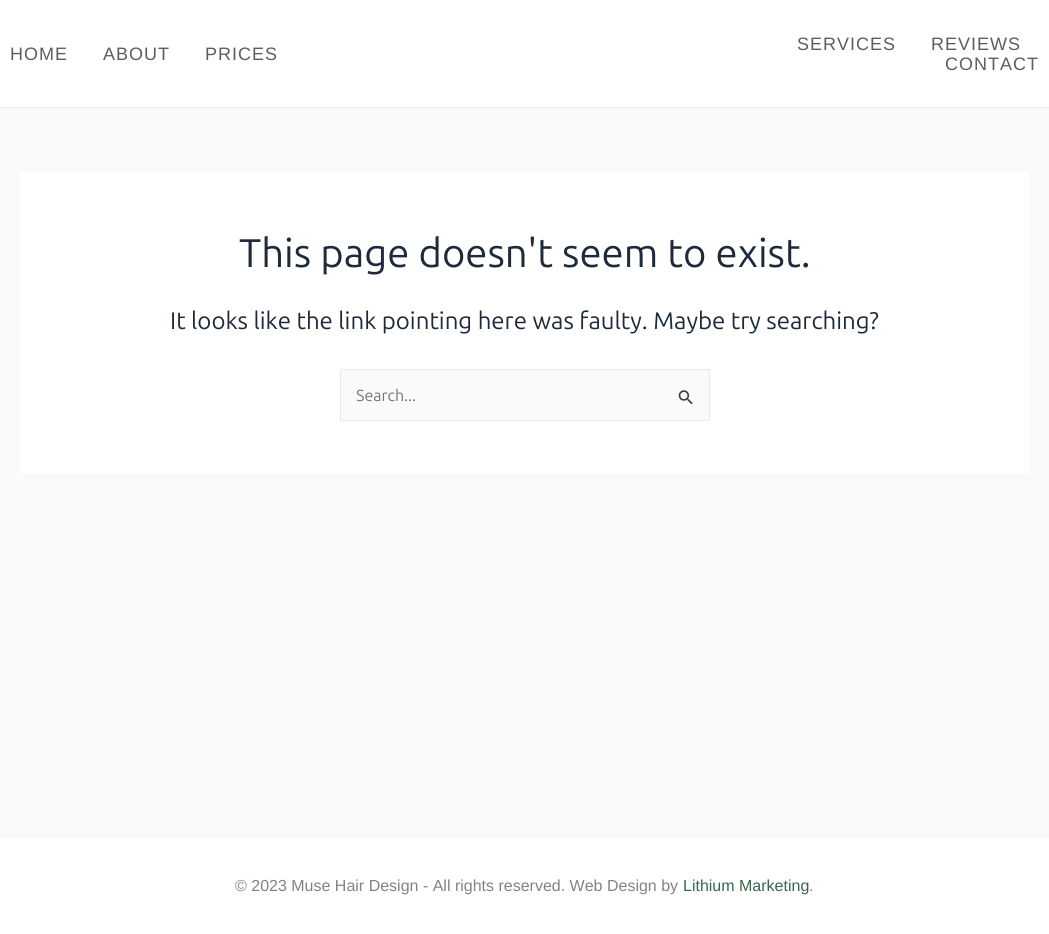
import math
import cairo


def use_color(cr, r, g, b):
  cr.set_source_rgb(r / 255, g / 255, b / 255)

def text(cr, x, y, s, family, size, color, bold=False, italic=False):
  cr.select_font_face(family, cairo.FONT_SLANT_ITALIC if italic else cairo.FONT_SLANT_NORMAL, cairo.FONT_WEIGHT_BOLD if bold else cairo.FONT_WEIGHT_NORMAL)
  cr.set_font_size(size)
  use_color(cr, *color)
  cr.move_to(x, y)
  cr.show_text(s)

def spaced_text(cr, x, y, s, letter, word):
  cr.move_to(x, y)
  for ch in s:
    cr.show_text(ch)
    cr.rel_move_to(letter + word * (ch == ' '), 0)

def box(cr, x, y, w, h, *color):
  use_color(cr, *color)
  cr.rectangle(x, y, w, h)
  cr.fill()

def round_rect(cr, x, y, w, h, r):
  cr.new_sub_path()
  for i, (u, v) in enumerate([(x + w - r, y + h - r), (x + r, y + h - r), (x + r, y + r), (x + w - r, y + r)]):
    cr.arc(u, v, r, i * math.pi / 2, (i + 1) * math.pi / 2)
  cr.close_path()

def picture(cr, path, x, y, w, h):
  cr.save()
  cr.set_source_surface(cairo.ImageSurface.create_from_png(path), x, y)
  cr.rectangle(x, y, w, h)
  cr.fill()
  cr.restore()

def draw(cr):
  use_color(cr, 249, 250, 251)
  cr.paint()
  box(cr, 0, 0, 1049, 107, 255, 255, 255)
  box(cr, 0, 107, 1049, 1, 237, 237, 237)
  box(cr, 20, 172, 1009, 302, 255, 255, 255)
  use_color(cr, 250, 250, 250)
  round_rect(cr, 340.5, 369.5, 369, 51, 1.5)
  cr.fill_preserve()
  use_color(cr, 226, 232, 240)
  cr.set_line_width(1)
  cr.stroke()
  picture(cr, "img_01.png", 678, 390, 15, 15)
  box(cr, 0, 838, 1049, 96, 255, 255, 255)
  cr.select_font_face("Liberation Sans")
  cr.set_font_size(18)
  use_color(cr, 93, 93, 93)
  spaced_text(cr, 10, 60, "HOME", 1, 0)
  spaced_text(cr, 103, 60, "ABOUT", 1, 0)
  spaced_text(cr, 205, 60, "PRICES", 1, 0)
  spaced_text(cr, 797, 50, "SERVICES", 1, 0)
  spaced_text(cr, 931, 50, "REVIEWS", 1, 0)
  spaced_text(cr, 945, 70, "CONTACT", 1, 0)
  text(cr, 239, 267, "This page doesn't seem to exist.", "Ubuntu", 40, (30, 41, 59))
  text(cr, 170, 329, "It looks like the link pointing here was faulty. Maybe try searching?", "Ubuntu", 24, (30, 41, 59))
  text(cr, 356, 401, "Search...", "Ubuntu", 16, (117, 117, 117))
  text(cr, 235, 891, "© 2023 Muse Hair Design - All rights reserved. Web Design by", "Liberation Sans", 16, (131, 131, 131))
  text(cr, 683, 891, "Lithium Marketing", "Liberation Sans", 16, (54, 103, 78))
  text(cr, 809, 891, ".", "Liberation Sans", 16, (131, 131, 131))


surface = cairo.ImageSurface(cairo.FORMAT_RGB24, 1049, 934)
cr = cairo.Context(surface)
options = cairo.FontOptions()
options.set_hint_metrics(cairo.HINT_METRICS_OFF)
options.set_hint_style(cairo.HINT_STYLE_NONE)
cr.set_font_options(options)
cr.set_miter_limit(4)
draw(cr)
surface.write_to_png("out.png")
